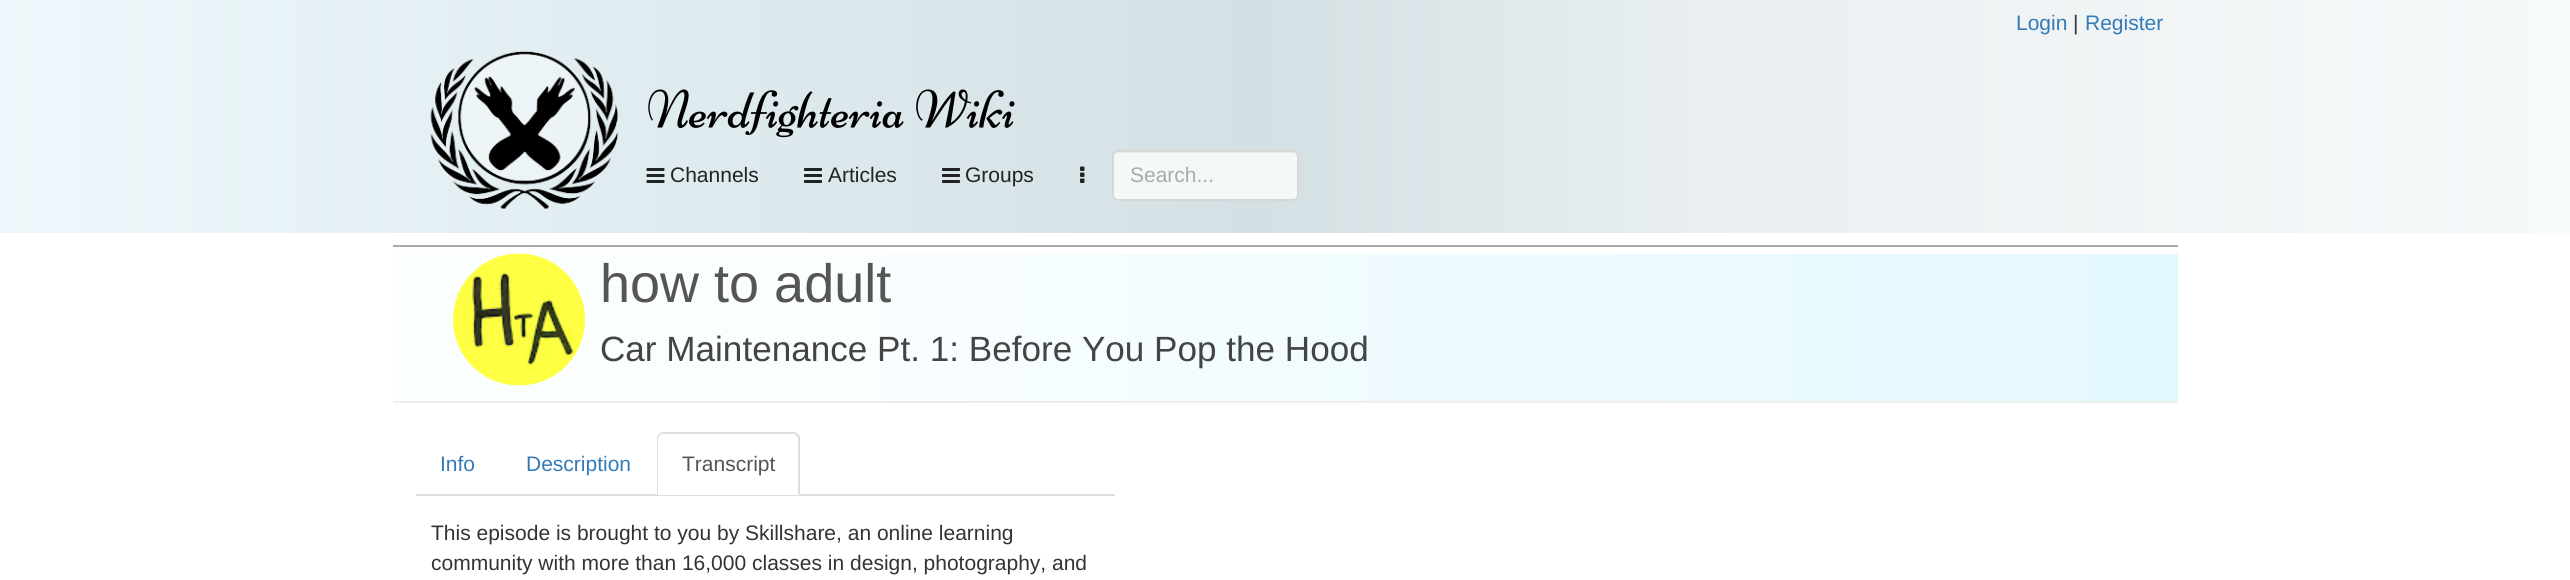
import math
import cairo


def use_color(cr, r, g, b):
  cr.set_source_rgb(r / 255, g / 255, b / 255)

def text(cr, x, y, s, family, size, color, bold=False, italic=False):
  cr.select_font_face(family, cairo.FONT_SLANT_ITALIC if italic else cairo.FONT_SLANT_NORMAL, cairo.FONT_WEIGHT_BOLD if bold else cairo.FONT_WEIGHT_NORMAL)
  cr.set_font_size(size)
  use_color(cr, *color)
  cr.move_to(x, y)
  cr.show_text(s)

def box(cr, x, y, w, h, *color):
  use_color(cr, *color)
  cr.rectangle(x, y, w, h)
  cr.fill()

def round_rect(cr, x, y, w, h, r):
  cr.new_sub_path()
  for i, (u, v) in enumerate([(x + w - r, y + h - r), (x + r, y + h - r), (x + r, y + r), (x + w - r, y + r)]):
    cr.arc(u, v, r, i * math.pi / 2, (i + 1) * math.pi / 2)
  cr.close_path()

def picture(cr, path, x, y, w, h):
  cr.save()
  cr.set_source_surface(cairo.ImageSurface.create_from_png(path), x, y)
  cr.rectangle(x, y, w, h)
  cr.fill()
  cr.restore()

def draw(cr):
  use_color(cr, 255, 255, 255)
  cr.paint()
  gradient = cairo.LinearGradient(0, 116, 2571, 116)
  gradient.add_color_stop_rgba(0, 0.933, 0.973, 0.988, 1)
  gradient.add_color_stop_rgba(0.49, 0.831, 0.878, 0.894, 1)
  gradient.add_color_stop_rgba(0.66, 0.914, 0.937, 0.945, 1)
  gradient.add_color_stop_rgba(1, 0.969, 0.98, 0.984, 1)
  cr.set_source(gradient)
  cr.rectangle(0, 0, 2570, 233)
  cr.fill()
  picture(cr, "img_01.png", 430, 51, 188, 158)
  picture(cr, "img_02.png", 648, 89, 367, 49)
  picture(cr, "img_03.png", 646, 168, 19, 15)
  picture(cr, "img_04.png", 804, 168, 18, 15)
  picture(cr, "img_05.png", 942, 168, 18, 15)
  picture(cr, "img_06.png", 1080, 166, 5, 17)
  cr.set_source_rgba(1, 1, 1, 0.75)
  round_rect(cr, 1112, 150, 187, 51, 6)
  cr.fill()
  use_color(cr, 231, 234, 235)
  cr.new_path()
  cr.move_to(1118, 153)
  cr.line_to(1293, 153)
  cr.curve_to(1295, 153, 1298, 155, 1298, 158)
  cr.curve_to(1298, 155, 1297, 153, 1294, 152)
  cr.line_to(1117, 152)
  cr.curve_to(1114, 153, 1113, 155, 1113, 158)
  cr.curve_to(1113, 155, 1115, 153, 1118, 153)
  cr.close_path()
  cr.fill()
  round_rect(cr, 1113, 151, 185, 49, 5)
  cr.set_source_rgba(0.8, 0.8, 0.8, 0.75)
  cr.stroke()
  box(cr, 393, 245, 1785, 2, 170, 170, 170)
  gradient = cairo.LinearGradient(393, 327, 2178, 327)
  gradient.add_color_stop_rgba(0.21, 0.984, 0.996, 1, 1)
  gradient.add_color_stop_rgba(1, 0.89, 0.973, 1, 1)
  cr.set_source(gradient)
  cr.rectangle(393, 254, 1785, 147)
  cr.fill()
  box(cr, 393, 401, 1785, 2, 238, 238, 238)
  picture(cr, "img_07.png", 453, 253, 132, 133)
  box(cr, 416, 494, 699, 2, 221, 221, 221)
  use_color(cr, 255, 255, 255)
  cr.new_path()
  cr.move_to(663, 432)
  cr.line_to(794, 432)
  cr.curve_to(797.5, 432, 800, 434.5, 800, 438)
  cr.line_to(800, 495)
  cr.line_to(657, 495)
  cr.line_to(657, 438)
  cr.curve_to(657, 434.5, 659.5, 432, 663, 432)
  cr.close_path()
  cr.fill()
  use_color(cr, 221, 221, 221)
  cr.new_path()
  cr.move_to(663, 432)
  cr.curve_to(662, 432, 660, 433, 659, 434)
  cr.line_to(660, 435)
  cr.line_to(663, 434)
  cr.line_to(794, 434)
  cr.line_to(796, 435)
  cr.line_to(798, 434)
  cr.curve_to(797, 433, 795, 432, 794, 432)
  cr.close_path()
  cr.fill()
  cr.new_path()
  cr.move_to(800, 436)
  cr.line_to(800, 495)
  cr.line_to(798, 494)
  cr.line_to(798, 438)
  cr.line_to(796, 435)
  cr.line_to(798, 434)
  cr.close_path()
  cr.fill()
  cr.new_path()
  cr.move_to(657, 495)
  cr.line_to(658, 494)
  cr.line_to(658, 438)
  cr.line_to(660, 435)
  cr.line_to(659, 434)
  cr.curve_to(658, 435, 657, 436, 657, 438)
  cr.close_path()
  cr.fill()
  text(cr, 2016, 30, "Login", "Liberation Sans", 21, (51, 122, 183))
  text(cr, 2073, 30, "|", "Liberation Sans", 21, (51, 51, 51))
  text(cr, 2085, 30, "Register", "Liberation Sans", 21, (51, 122, 183))
  text(cr, 670, 182, "Channels", "Liberation Sans", 21, (33, 35, 36))
  text(cr, 828, 182, "Articles", "Liberation Sans", 21, (33, 35, 36))
  text(cr, 965, 182, "Groups", "Liberation Sans", 21, (33, 35, 36))
  text(cr, 1130, 182, "Search...", "Liberation Sans", 21, (168, 171, 172))
  text(cr, 600, 302, "how to adult", "Liberation Sans", 54, (85, 85, 85))
  text(cr, 600, 361, "Car Maintenance Pt. 1: Before You Pop the Hood", "Liberation Sans", 35.1, (68, 68, 68))
  text(cr, 440, 471, "Info", "Liberation Sans", 21, (51, 122, 183))
  text(cr, 526, 471, "Description", "Liberation Sans", 21, (51, 122, 183))
  text(cr, 682, 471, "Transcript", "Liberation Sans", 21, (85, 85, 85))
  text(cr, 431, 540, "This episode is brought to you by Skillshare, an online learning", "Liberation Sans", 21, (51, 51, 51))
  text(cr, 431, 570, "community with more than 16,000 classes in design, photography, and", "Liberation Sans", 21, (51, 51, 51))


surface = cairo.ImageSurface(cairo.FORMAT_RGB24, 2570, 580)
cr = cairo.Context(surface)
options = cairo.FontOptions()
options.set_hint_metrics(cairo.HINT_METRICS_OFF)
options.set_hint_style(cairo.HINT_STYLE_NONE)
cr.set_font_options(options)
cr.set_miter_limit(4)
draw(cr)
surface.write_to_png("out.png")
